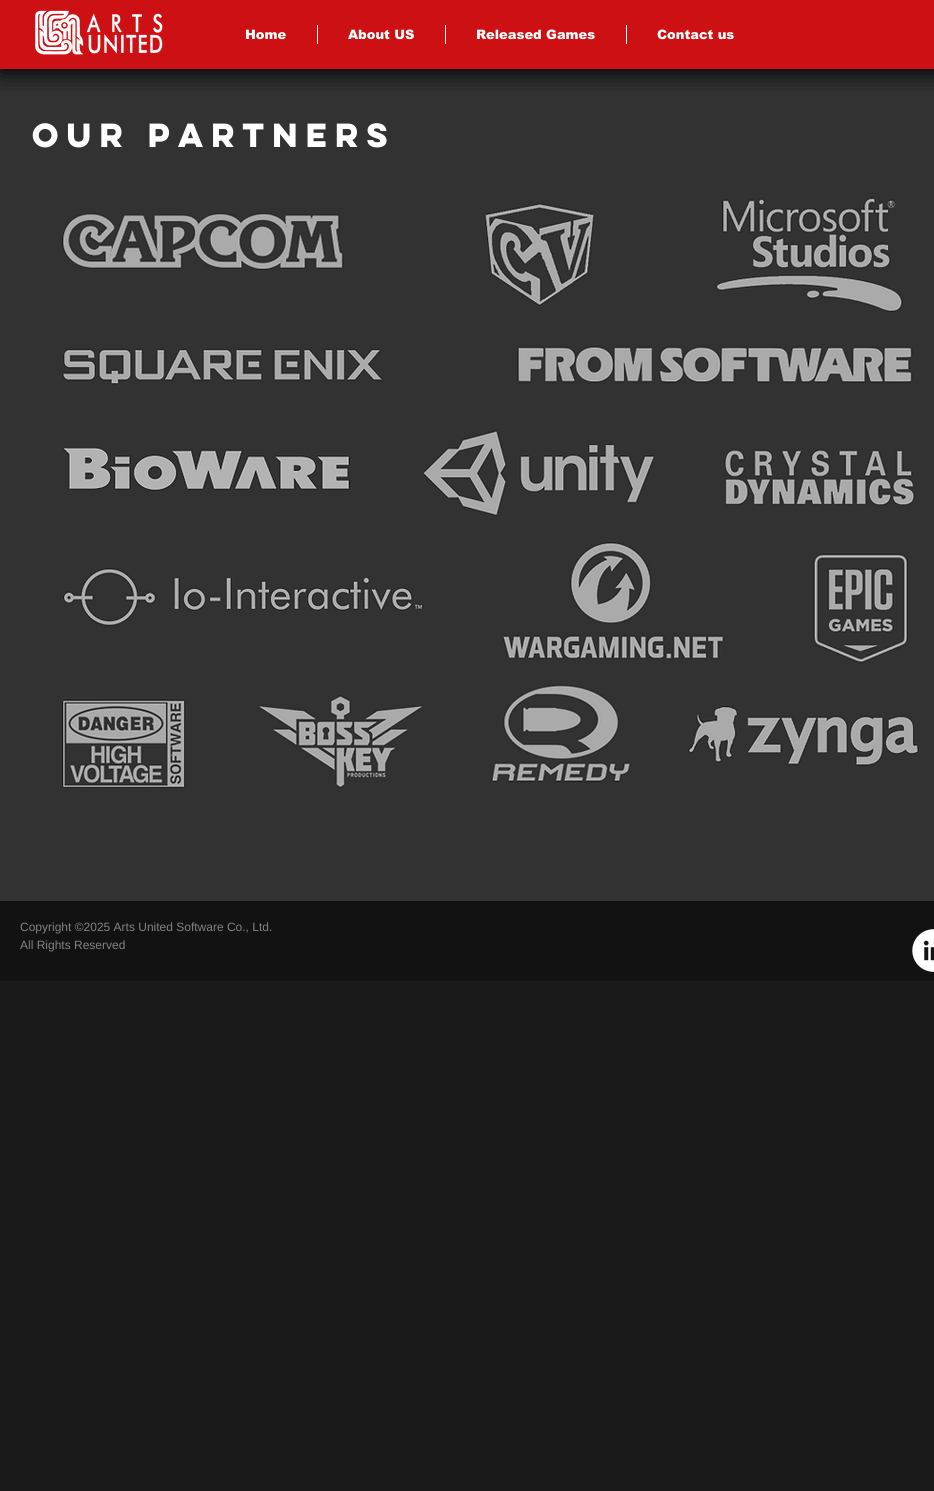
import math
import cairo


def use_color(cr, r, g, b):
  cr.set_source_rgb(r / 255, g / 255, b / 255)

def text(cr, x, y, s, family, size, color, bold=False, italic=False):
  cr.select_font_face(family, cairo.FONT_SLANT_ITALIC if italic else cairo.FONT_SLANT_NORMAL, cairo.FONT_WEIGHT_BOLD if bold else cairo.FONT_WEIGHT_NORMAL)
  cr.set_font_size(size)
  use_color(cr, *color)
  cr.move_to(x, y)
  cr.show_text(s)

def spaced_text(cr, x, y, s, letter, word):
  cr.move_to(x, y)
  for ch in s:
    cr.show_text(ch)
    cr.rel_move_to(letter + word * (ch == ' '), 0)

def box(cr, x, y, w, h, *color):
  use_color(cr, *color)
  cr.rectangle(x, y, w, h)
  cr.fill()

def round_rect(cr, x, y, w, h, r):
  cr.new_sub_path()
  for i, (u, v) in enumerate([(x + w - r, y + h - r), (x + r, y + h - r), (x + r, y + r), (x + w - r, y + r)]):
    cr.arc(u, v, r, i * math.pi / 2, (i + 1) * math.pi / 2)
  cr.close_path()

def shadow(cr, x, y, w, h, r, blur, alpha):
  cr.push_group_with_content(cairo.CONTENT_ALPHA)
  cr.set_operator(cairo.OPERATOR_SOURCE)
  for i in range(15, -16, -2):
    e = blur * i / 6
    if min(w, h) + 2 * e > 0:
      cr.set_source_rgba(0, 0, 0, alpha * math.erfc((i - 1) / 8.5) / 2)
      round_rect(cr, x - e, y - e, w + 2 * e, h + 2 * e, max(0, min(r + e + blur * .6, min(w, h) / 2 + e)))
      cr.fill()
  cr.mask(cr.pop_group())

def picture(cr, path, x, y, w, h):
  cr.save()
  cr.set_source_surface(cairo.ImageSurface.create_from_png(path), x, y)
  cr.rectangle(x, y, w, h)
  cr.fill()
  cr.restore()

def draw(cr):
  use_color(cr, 26, 26, 26)
  cr.paint()
  box(cr, 0, 69, 934, 832, 50, 50, 50)
  use_color(cr, 0, 0, 0)
  shadow(cr, 0, 4, 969, 69, 0, 11.5, 1)
  box(cr, 0, 0, 934, 69, 204, 16, 19)
  picture(cr, "img_01.png", 35, 10, 128, 45)
  box(cr, 317, 25, 1, 19, 255, 255, 255)
  box(cr, 445, 25, 1, 19, 255, 255, 255)
  box(cr, 626, 25, 1, 19, 255, 255, 255)
  picture(cr, "img_02.png", 61, 197, 859, 591)
  box(cr, 0, 901, 934, 80, 18, 18, 18)
  picture(cr, "img_03.png", 912, 929, 22, 43)
  text(cr, 245, 39, "Home", "arial Black", 13, (255, 255, 255))
  text(cr, 348, 39, "About US", "arial Black", 13, (255, 255, 255))
  text(cr, 476, 39, "Released Games", "arial Black", 13, (255, 255, 255))
  text(cr, 657, 39, "Contact us", "arial Black", 13, (255, 255, 255))
  cr.select_font_face("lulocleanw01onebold", cairo.FONT_SLANT_NORMAL, cairo.FONT_WEIGHT_BOLD)
  cr.set_font_size(30)
  spaced_text(cr, 32, 147, "OUR PARTNERS", 1.5, 0)
  text(cr, 20, 931, "Copyright ©2025 Arts United Software Co., Ltd.", "Liberation Sans", 12, (130, 130, 130))
  text(cr, 20, 949, "All Rights Reserved", "Liberation Sans", 12, (130, 130, 130))


surface = cairo.ImageSurface(cairo.FORMAT_RGB24, 934, 1491)
cr = cairo.Context(surface)
options = cairo.FontOptions()
options.set_hint_metrics(cairo.HINT_METRICS_OFF)
options.set_hint_style(cairo.HINT_STYLE_NONE)
cr.set_font_options(options)
cr.set_miter_limit(4)
draw(cr)
surface.write_to_png("out.png")
